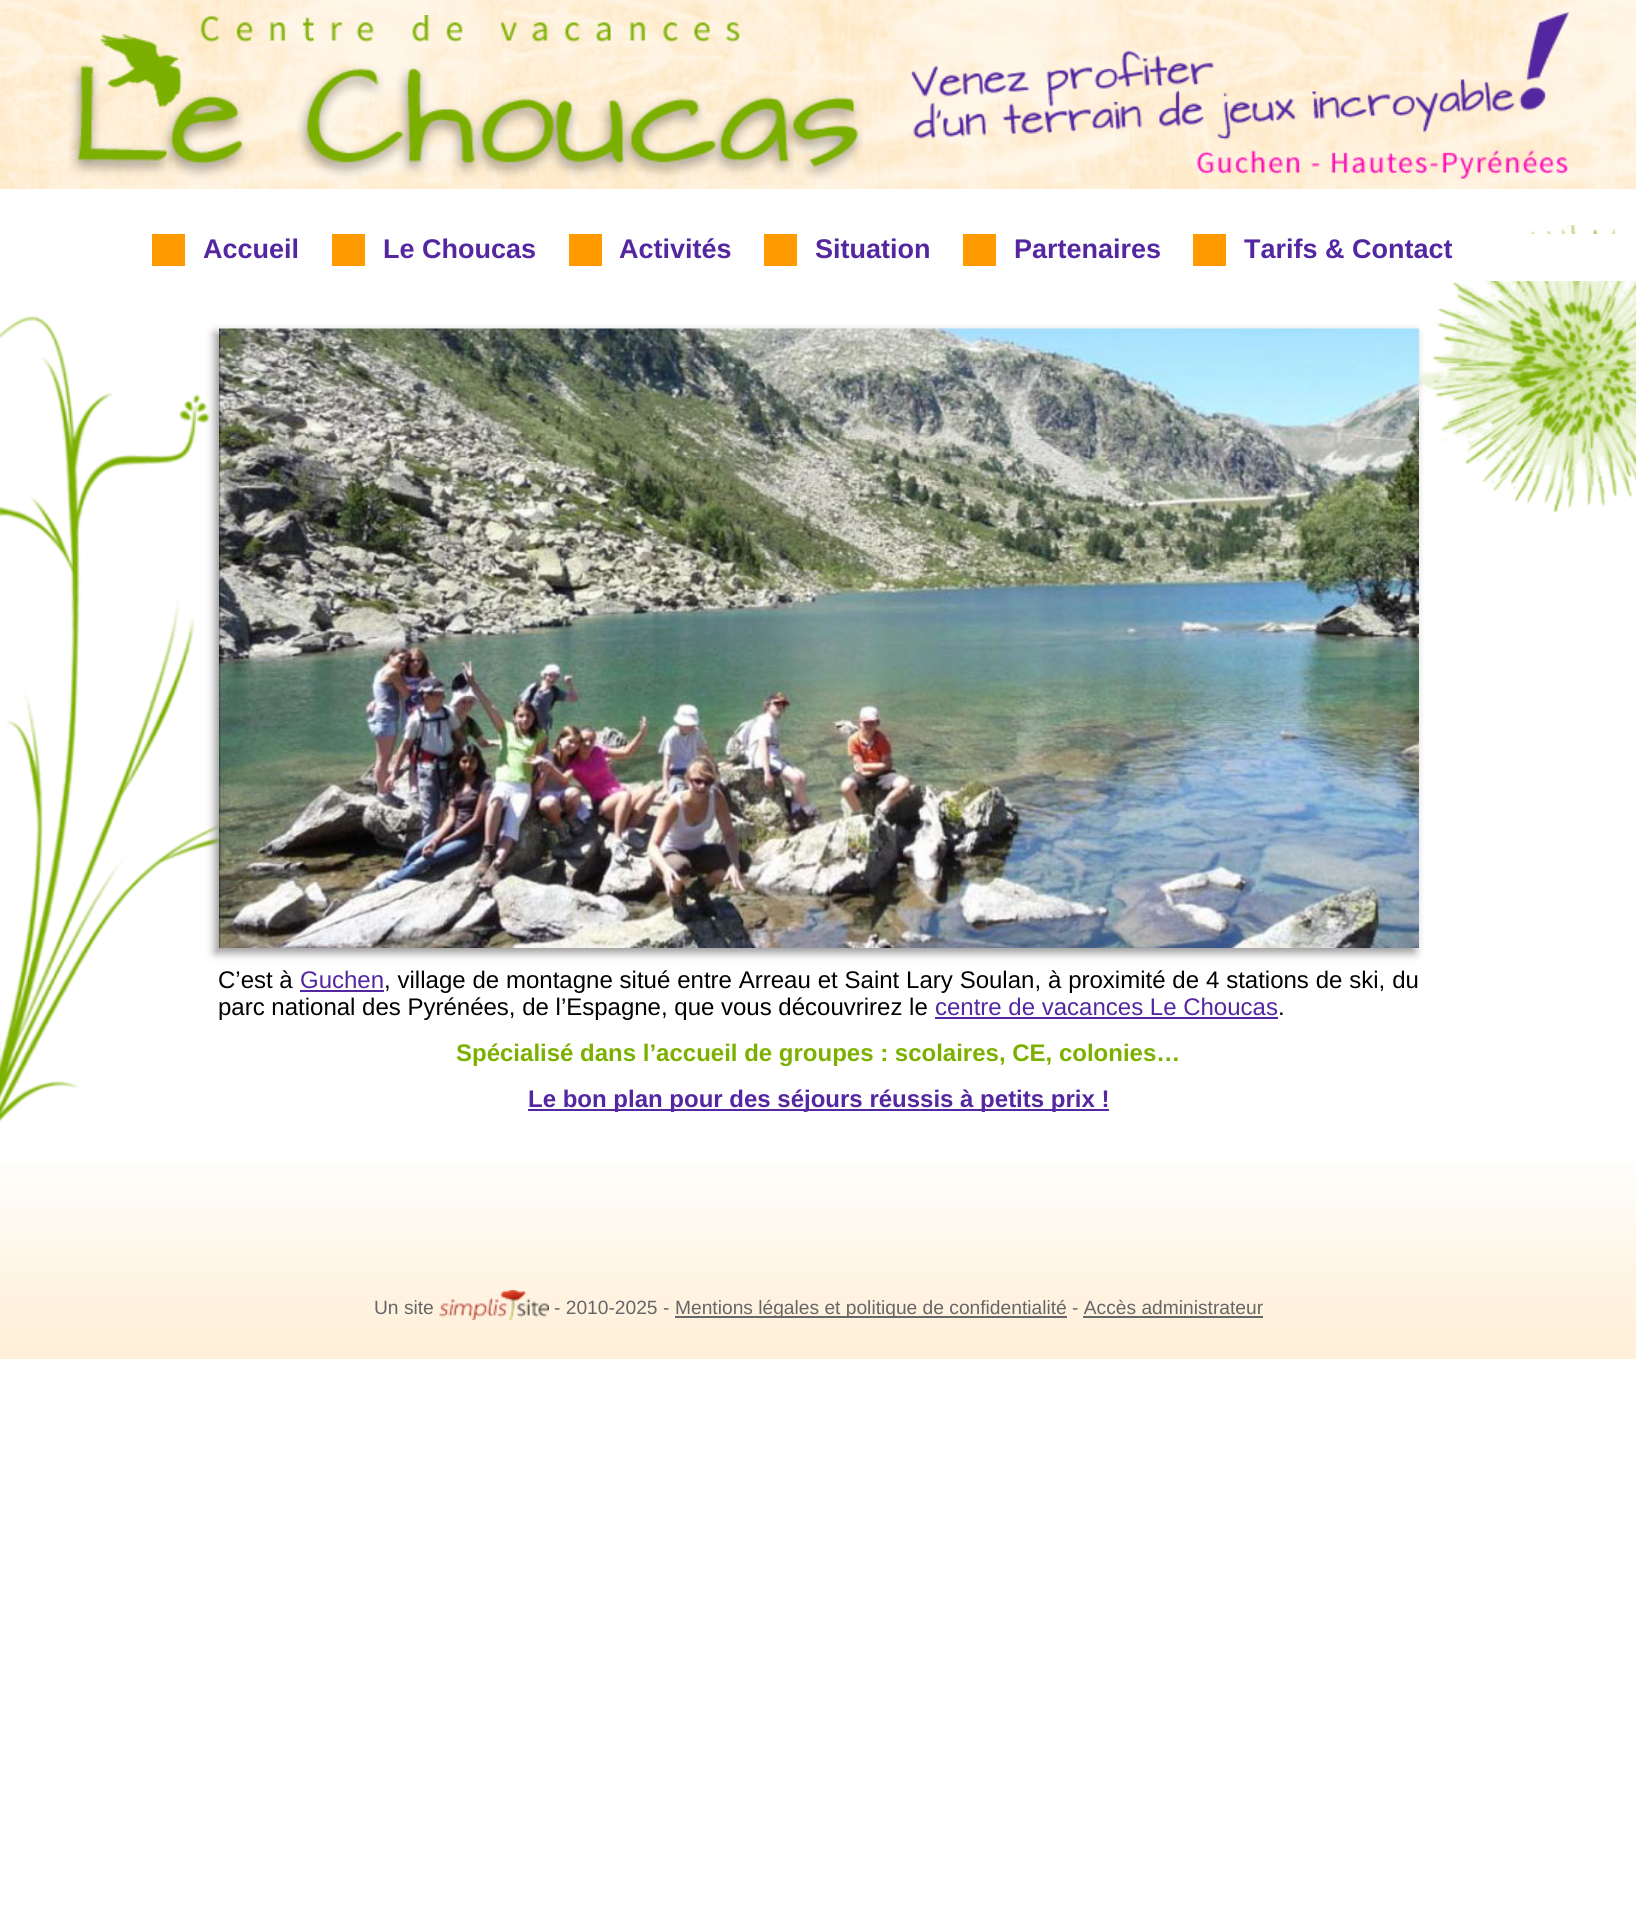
import math
import cairo


def use_color(cr, r, g, b):
  cr.set_source_rgb(r / 255, g / 255, b / 255)

def text(cr, x, y, s, family, size, color, bold=False, italic=False):
  cr.select_font_face(family, cairo.FONT_SLANT_ITALIC if italic else cairo.FONT_SLANT_NORMAL, cairo.FONT_WEIGHT_BOLD if bold else cairo.FONT_WEIGHT_NORMAL)
  cr.set_font_size(size)
  use_color(cr, *color)
  cr.move_to(x, y)
  cr.show_text(s)

def spaced_text(cr, x, y, s, letter, word):
  cr.move_to(x, y)
  for ch in s:
    cr.show_text(ch)
    cr.rel_move_to(letter + word * (ch == ' '), 0)

def box(cr, x, y, w, h, *color):
  use_color(cr, *color)
  cr.rectangle(x, y, w, h)
  cr.fill()

def round_rect(cr, x, y, w, h, r):
  cr.new_sub_path()
  for i, (u, v) in enumerate([(x + w - r, y + h - r), (x + r, y + h - r), (x + r, y + r), (x + w - r, y + r)]):
    cr.arc(u, v, r, i * math.pi / 2, (i + 1) * math.pi / 2)
  cr.close_path()

def shadow(cr, x, y, w, h, r, blur, alpha):
  cr.push_group_with_content(cairo.CONTENT_ALPHA)
  cr.set_operator(cairo.OPERATOR_SOURCE)
  for i in range(15, -16, -2):
    e = blur * i / 6
    if min(w, h) + 2 * e > 0:
      cr.set_source_rgba(0, 0, 0, alpha * math.erfc((i - 1) / 8.5) / 2)
      round_rect(cr, x - e, y - e, w + 2 * e, h + 2 * e, max(0, min(r + e + blur * .6, min(w, h) / 2 + e)))
      cr.fill()
  cr.mask(cr.pop_group())

def picture(cr, path, x, y, w, h):
  cr.save()
  cr.set_source_surface(cairo.ImageSurface.create_from_png(path), x, y)
  cr.rectangle(x, y, w, h)
  cr.fill()
  cr.restore()

def draw(cr):
  use_color(cr, 255, 255, 255)
  cr.paint()
  picture(cr, "img_01.png", 0, 1163, 1636, 196)
  picture(cr, "img_02.png", 0, 225, 1636, 898)
  picture(cr, "img_03.png", 0, 0, 1636, 189)
  picture(cr, "img_04.png", 69, 15, 794, 164)
  picture(cr, "img_05.png", 910, 12, 659, 167)
  box(cr, 1473, 234, 163, 47, 255, 255, 255)
  box(cr, 152, 234, 33, 32, 255, 155, 0)
  box(cr, 332, 234, 33, 32, 255, 155, 0)
  box(cr, 569, 234, 33, 32, 255, 155, 0)
  box(cr, 764, 234, 33, 32, 255, 155, 0)
  box(cr, 963, 234, 33, 32, 255, 155, 0)
  box(cr, 1193, 234, 33, 32, 255, 155, 0)
  use_color(cr, 153, 153, 153)
  shadow(cr, 215, 333, 1200, 620, 0, 4.5, 1)
  picture(cr, "img_06.png", 219, 328, 1200, 620)
  box(cr, 300, 990, 84, 2, 84, 38, 160)
  box(cr, 935, 1017, 343, 2, 84, 38, 160)
  box(cr, 528, 1109, 581, 2, 84, 38, 160)
  picture(cr, "img_07.png", 439, 1290, 110, 30)
  box(cr, 675, 1316, 392, 2, 102, 102, 102)
  box(cr, 1083, 1316, 180, 2, 102, 102, 102)
  text(cr, 203, 258, "Accueil", "Liberation Sans", 27, (84, 38, 160), bold=True)
  text(cr, 383, 258, "Le Choucas", "Liberation Sans", 27, (84, 38, 160), bold=True)
  text(cr, 619, 258, "Activités", "Liberation Sans", 27, (84, 38, 160), bold=True)
  text(cr, 815, 258, "Situation", "Liberation Sans", 27, (84, 38, 160), bold=True)
  text(cr, 1014, 258, "Partenaires", "Liberation Sans", 27, (84, 38, 160), bold=True)
  text(cr, 1244, 258, "Tarifs & Contact", "Liberation Sans", 27, (84, 38, 160), bold=True)
  text(cr, 218, 988, "C’est à", "Liberation Sans", 24, (0, 0, 0))
  text(cr, 300, 988, "Guchen", "Liberation Sans", 24, (84, 38, 160))
  use_color(cr, 0, 0, 0)
  spaced_text(cr, 384, 988, ", village de montagne situé entre Arreau et Saint Lary Soulan, à proximité de 4 stations de ski, du", 0, 0.2)
  text(cr, 218, 1015, "parc national des Pyrénées, de l’Espagne, que vous découvrirez le", "Liberation Sans", 24, (0, 0, 0))
  text(cr, 935, 1015, "centre de vacances Le Choucas", "Liberation Sans", 24, (84, 38, 160))
  text(cr, 1278, 1015, ".", "Liberation Sans", 24, (0, 0, 0))
  text(cr, 456, 1061, "Spécialisé dans l’accueil de groupes : scolaires, CE, colonies…", "Liberation Sans", 24, (124, 176, 0), bold=True)
  text(cr, 528, 1107, "Le bon plan pour des séjours réussis à petits prix !", "Liberation Sans", 24, (84, 38, 160), bold=True)
  text(cr, 374, 1314, "Un site", "Liberation Sans", 19.2, (102, 102, 102))
  text(cr, 554, 1314, "- 2010-2025 -", "Liberation Sans", 19.2, (102, 102, 102))
  text(cr, 675, 1314, "Mentions légales et politique de confidentialité - Accès administrateur", "Liberation Sans", 19.2, (102, 102, 102))


surface = cairo.ImageSurface(cairo.FORMAT_RGB24, 1636, 1907)
cr = cairo.Context(surface)
options = cairo.FontOptions()
options.set_hint_metrics(cairo.HINT_METRICS_OFF)
options.set_hint_style(cairo.HINT_STYLE_NONE)
cr.set_font_options(options)
cr.set_miter_limit(4)
draw(cr)
surface.write_to_png("out.png")
